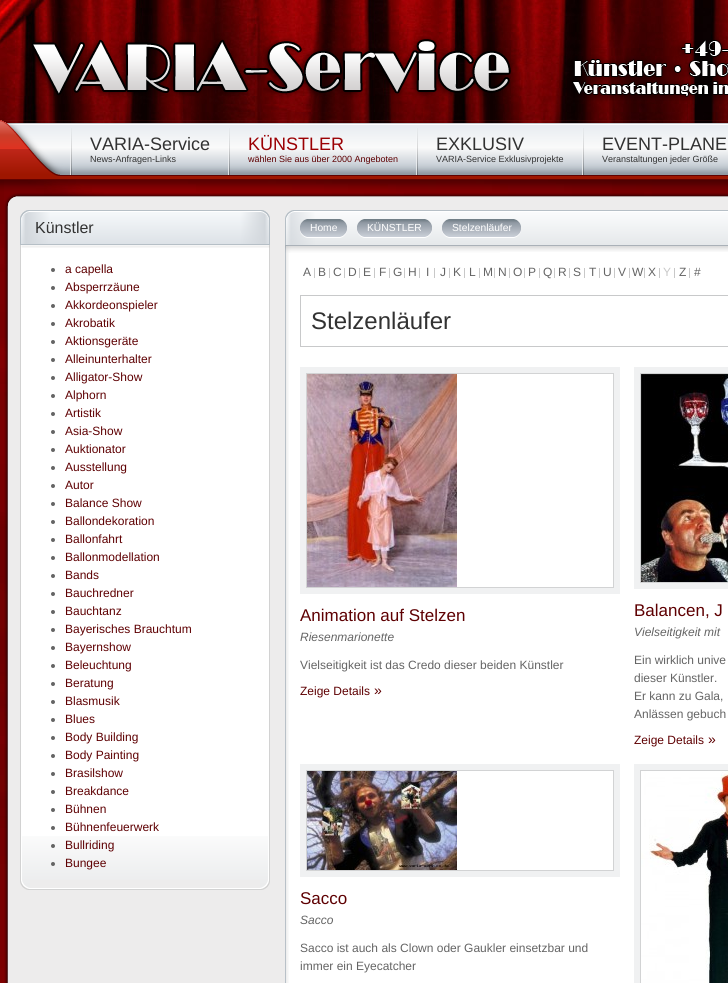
import math
import cairo


def use_color(cr, r, g, b):
  cr.set_source_rgb(r / 255, g / 255, b / 255)

def text(cr, x, y, s, family, size, color, bold=False, italic=False):
  cr.select_font_face(family, cairo.FONT_SLANT_ITALIC if italic else cairo.FONT_SLANT_NORMAL, cairo.FONT_WEIGHT_BOLD if bold else cairo.FONT_WEIGHT_NORMAL)
  cr.set_font_size(size)
  use_color(cr, *color)
  cr.move_to(x, y)
  cr.show_text(s)

def box(cr, x, y, w, h, *color):
  use_color(cr, *color)
  cr.rectangle(x, y, w, h)
  cr.fill()

def picture(cr, path, x, y, w, h):
  cr.save()
  cr.set_source_surface(cairo.ImageSurface.create_from_png(path), x, y)
  cr.rectangle(x, y, w, h)
  cr.fill()
  cr.restore()

def draw(cr):
  use_color(cr, 255, 255, 255)
  cr.paint()
  picture(cr, "img_01.png", 0, 180, 728, 803)
  picture(cr, "img_02.png", 0, 0, 728, 983)
  picture(cr, "img_03.png", 31, 36, 697, 65)
  picture(cr, "img_04.png", 0, 120, 70, 56)
  picture(cr, "img_05.png", 70, 123, 658, 53)
  picture(cr, "img_06.png", 70, 128, 2, 47)
  picture(cr, "img_06.png", 228, 128, 2, 47)
  picture(cr, "img_06.png", 416, 128, 2, 47)
  picture(cr, "img_06.png", 582, 128, 2, 47)
  picture(cr, "img_07.png", 20, 210, 8, 8)
  picture(cr, "img_08.png", 262, 210, 8, 8)
  box(cr, 21, 245, 248, 635, 255, 255, 255)
  box(cr, 20, 245, 1, 635, 210, 210, 210)
  picture(cr, "img_09.png", 20, 210, 30, 38)
  box(cr, 269, 245, 1, 635, 210, 210, 210)
  picture(cr, "img_10.png", 240, 210, 30, 38)
  picture(cr, "img_11.png", 50, 210, 190, 38)
  picture(cr, "img_12.png", 22, 836, 246, 44)
  use_color(cr, 100, 100, 100)
  cr.arc(53, 270, 2, 0, 2 * math.pi)
  cr.fill()
  cr.arc(53, 288, 2, 0, 2 * math.pi)
  cr.fill()
  cr.arc(53, 306, 2, 0, 2 * math.pi)
  cr.fill()
  cr.arc(53, 324, 2, 0, 2 * math.pi)
  cr.fill()
  cr.arc(53, 342, 2, 0, 2 * math.pi)
  cr.fill()
  cr.arc(53, 360, 2, 0, 2 * math.pi)
  cr.fill()
  cr.arc(53, 378, 2, 0, 2 * math.pi)
  cr.fill()
  cr.arc(53, 396, 2, 0, 2 * math.pi)
  cr.fill()
  cr.arc(53, 414, 2, 0, 2 * math.pi)
  cr.fill()
  cr.arc(53, 432, 2, 0, 2 * math.pi)
  cr.fill()
  cr.arc(53, 450, 2, 0, 2 * math.pi)
  cr.fill()
  cr.arc(53, 468, 2, 0, 2 * math.pi)
  cr.fill()
  cr.arc(53, 486, 2, 0, 2 * math.pi)
  cr.fill()
  cr.arc(53, 504, 2, 0, 2 * math.pi)
  cr.fill()
  cr.arc(53, 522, 2, 0, 2 * math.pi)
  cr.fill()
  cr.arc(53, 540, 2, 0, 2 * math.pi)
  cr.fill()
  cr.arc(53, 558, 2, 0, 2 * math.pi)
  cr.fill()
  cr.arc(53, 576, 2, 0, 2 * math.pi)
  cr.fill()
  cr.arc(53, 594, 2, 0, 2 * math.pi)
  cr.fill()
  cr.arc(53, 612, 2, 0, 2 * math.pi)
  cr.fill()
  cr.arc(53, 630, 2, 0, 2 * math.pi)
  cr.fill()
  cr.arc(53, 648, 2, 0, 2 * math.pi)
  cr.fill()
  cr.arc(53, 666, 2, 0, 2 * math.pi)
  cr.fill()
  cr.arc(53, 684, 2, 0, 2 * math.pi)
  cr.fill()
  cr.arc(53, 702, 2, 0, 2 * math.pi)
  cr.fill()
  cr.arc(53, 720, 2, 0, 2 * math.pi)
  cr.fill()
  cr.arc(53, 738, 2, 0, 2 * math.pi)
  cr.fill()
  cr.arc(53, 756, 2, 0, 2 * math.pi)
  cr.fill()
  cr.arc(53, 774, 2, 0, 2 * math.pi)
  cr.fill()
  cr.arc(53, 792, 2, 0, 2 * math.pi)
  cr.fill()
  cr.arc(53, 810, 2, 0, 2 * math.pi)
  cr.fill()
  cr.arc(53, 828, 2, 0, 2 * math.pi)
  cr.fill()
  cr.arc(53, 846, 2, 0, 2 * math.pi)
  cr.fill()
  cr.arc(53, 864, 2, 0, 2 * math.pi)
  cr.fill()
  picture(cr, "img_13.png", 20, 880, 10, 10)
  picture(cr, "img_14.png", 260, 880, 10, 10)
  picture(cr, "img_15.png", 30, 888, 230, 2)
  box(cr, 289, 252, 439, 731, 255, 255, 255)
  picture(cr, "img_16.png", 285, 210, 215, 43)
  picture(cr, "img_17.png", 500, 210, 228, 42)
  picture(cr, "img_18.png", 300, 219, 10, 19)
  picture(cr, "img_19.png", 337, 219, 10, 19)
  picture(cr, "img_20.png", 310, 219, 27, 19)
  picture(cr, "img_21.png", 357, 219, 10, 19)
  picture(cr, "img_19.png", 422, 219, 10, 19)
  picture(cr, "img_22.png", 367, 219, 55, 19)
  picture(cr, "img_21.png", 442, 219, 10, 19)
  picture(cr, "img_19.png", 511, 219, 10, 19)
  picture(cr, "img_23.png", 452, 219, 59, 19)
  picture(cr, "img_24.png", 285, 253, 4, 730)
  box(cr, 314, 268, 1, 10, 200, 200, 200)
  box(cr, 329, 268, 1, 10, 200, 200, 200)
  box(cr, 344, 268, 1, 10, 200, 200, 200)
  box(cr, 359, 268, 1, 10, 200, 200, 200)
  box(cr, 374, 268, 1, 10, 200, 200, 200)
  box(cr, 389, 268, 1, 10, 200, 200, 200)
  box(cr, 404, 268, 1, 10, 200, 200, 200)
  box(cr, 419, 268, 1, 10, 200, 200, 200)
  box(cr, 434, 268, 1, 10, 200, 200, 200)
  box(cr, 449, 268, 1, 10, 200, 200, 200)
  box(cr, 464, 268, 1, 10, 200, 200, 200)
  box(cr, 479, 268, 1, 10, 200, 200, 200)
  box(cr, 494, 268, 1, 10, 200, 200, 200)
  box(cr, 509, 268, 1, 10, 200, 200, 200)
  box(cr, 524, 268, 1, 10, 200, 200, 200)
  box(cr, 539, 268, 1, 10, 200, 200, 200)
  box(cr, 554, 268, 1, 10, 200, 200, 200)
  box(cr, 569, 268, 1, 10, 200, 200, 200)
  box(cr, 584, 268, 1, 10, 200, 200, 200)
  box(cr, 599, 268, 1, 10, 200, 200, 200)
  box(cr, 614, 268, 1, 10, 200, 200, 200)
  box(cr, 629, 268, 1, 10, 200, 200, 200)
  box(cr, 644, 268, 1, 10, 200, 200, 200)
  box(cr, 659, 268, 1, 10, 200, 200, 200)
  box(cr, 674, 268, 1, 10, 200, 200, 200)
  box(cr, 689, 268, 1, 10, 200, 200, 200)
  cr.rectangle(300.5, 295.5, 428, 51)
  use_color(cr, 200, 201, 202)
  cr.set_line_width(1)
  cr.stroke()
  cr.rectangle(303, 370, 314, 221)
  use_color(cr, 240, 241, 242)
  cr.set_line_width(6)
  cr.stroke()
  cr.rectangle(306.5, 373.5, 307, 214)
  use_color(cr, 210, 211, 212)
  cr.set_line_width(1)
  cr.stroke()
  picture(cr, "img_25.png", 307, 374, 150, 213)
  cr.rectangle(637, 370, 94, 216)
  use_color(cr, 240, 241, 242)
  cr.set_line_width(6)
  cr.stroke()
  cr.rectangle(640.5, 373.5, 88, 209)
  use_color(cr, 210, 211, 212)
  cr.set_line_width(1)
  cr.stroke()
  picture(cr, "img_26.png", 641, 374, 87, 208)
  cr.rectangle(303, 767, 314, 107)
  use_color(cr, 240, 241, 242)
  cr.set_line_width(6)
  cr.stroke()
  cr.rectangle(306.5, 770.5, 307, 100)
  use_color(cr, 210, 211, 212)
  cr.set_line_width(1)
  cr.stroke()
  picture(cr, "img_27.png", 307, 771, 150, 99)
  cr.rectangle(637, 767, 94, 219)
  use_color(cr, 240, 241, 242)
  cr.set_line_width(6)
  cr.stroke()
  cr.rectangle(640.5, 770.5, 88, 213)
  use_color(cr, 210, 211, 212)
  cr.set_line_width(1)
  cr.stroke()
  picture(cr, "img_28.png", 641, 771, 87, 212)
  text(cr, 90, 150, "VARIA-Service", "Liberation Sans", 18, (50, 50, 50))
  text(cr, 90, 162, "News-Anfragen-Links", "Liberation Sans", 9, (50, 50, 50))
  text(cr, 248, 150, "KÜNSTLER", "Liberation Sans", 18, (155, 0, 3))
  text(cr, 248, 162, "wählen Sie aus über 2000 Angeboten", "Liberation Sans", 9, (94, 0, 2))
  text(cr, 436, 150, "EXKLUSIV", "Liberation Sans", 18, (50, 50, 50))
  text(cr, 436, 162, "VARIA-Service Exklusivprojekte", "Liberation Sans", 9, (50, 50, 50))
  text(cr, 602, 150, "EVENT-PLANE", "Liberation Sans", 18, (50, 50, 50))
  text(cr, 602, 162, "Veranstaltungen jeder Größe", "Liberation Sans", 9, (50, 50, 50))
  text(cr, 35, 233, "Künstler", "Liberation Sans", 16, (50, 50, 50))
  text(cr, 65, 273, "a capella", "Liberation Sans", 12, (94, 0, 2))
  text(cr, 65, 291, "Absperrzäune", "Liberation Sans", 12, (94, 0, 2))
  text(cr, 65, 309, "Akkordeonspieler", "Liberation Sans", 12, (94, 0, 2))
  text(cr, 65, 327, "Akrobatik", "Liberation Sans", 12, (94, 0, 2))
  text(cr, 65, 345, "Aktionsgeräte", "Liberation Sans", 12, (94, 0, 2))
  text(cr, 65, 363, "Alleinunterhalter", "Liberation Sans", 12, (94, 0, 2))
  text(cr, 65, 381, "Alligator-Show", "Liberation Sans", 12, (94, 0, 2))
  text(cr, 65, 399, "Alphorn", "Liberation Sans", 12, (94, 0, 2))
  text(cr, 65, 417, "Artistik", "Liberation Sans", 12, (94, 0, 2))
  text(cr, 65, 435, "Asia-Show", "Liberation Sans", 12, (94, 0, 2))
  text(cr, 65, 453, "Auktionator", "Liberation Sans", 12, (94, 0, 2))
  text(cr, 65, 471, "Ausstellung", "Liberation Sans", 12, (94, 0, 2))
  text(cr, 65, 489, "Autor", "Liberation Sans", 12, (94, 0, 2))
  text(cr, 65, 507, "Balance Show", "Liberation Sans", 12, (94, 0, 2))
  text(cr, 65, 525, "Ballondekoration", "Liberation Sans", 12, (94, 0, 2))
  text(cr, 65, 543, "Ballonfahrt", "Liberation Sans", 12, (94, 0, 2))
  text(cr, 65, 561, "Ballonmodellation", "Liberation Sans", 12, (94, 0, 2))
  text(cr, 65, 579, "Bands", "Liberation Sans", 12, (94, 0, 2))
  text(cr, 65, 597, "Bauchredner", "Liberation Sans", 12, (94, 0, 2))
  text(cr, 65, 615, "Bauchtanz", "Liberation Sans", 12, (94, 0, 2))
  text(cr, 65, 633, "Bayerisches Brauchtum", "Liberation Sans", 12, (94, 0, 2))
  text(cr, 65, 651, "Bayernshow", "Liberation Sans", 12, (94, 0, 2))
  text(cr, 65, 669, "Beleuchtung", "Liberation Sans", 12, (94, 0, 2))
  text(cr, 65, 687, "Beratung", "Liberation Sans", 12, (94, 0, 2))
  text(cr, 65, 705, "Blasmusik", "Liberation Sans", 12, (94, 0, 2))
  text(cr, 65, 723, "Blues", "Liberation Sans", 12, (94, 0, 2))
  text(cr, 65, 741, "Body Building", "Liberation Sans", 12, (94, 0, 2))
  text(cr, 65, 759, "Body Painting", "Liberation Sans", 12, (94, 0, 2))
  text(cr, 65, 777, "Brasilshow", "Liberation Sans", 12, (94, 0, 2))
  text(cr, 65, 795, "Breakdance", "Liberation Sans", 12, (94, 0, 2))
  text(cr, 65, 813, "Bühnen", "Liberation Sans", 12, (94, 0, 2))
  text(cr, 65, 831, "Bühnenfeuerwerk", "Liberation Sans", 12, (94, 0, 2))
  text(cr, 65, 849, "Bullriding", "Liberation Sans", 12, (94, 0, 2))
  text(cr, 65, 867, "Bungee", "Liberation Sans", 12, (94, 0, 2))
  text(cr, 310, 231, "Home", "Liberation Sans", 10.25, (255, 255, 255))
  text(cr, 367, 231, "KÜNSTLER", "Liberation Sans", 10.25, (255, 255, 255))
  text(cr, 452, 231, "Stelzenläufer", "Liberation Sans", 10.25, (255, 255, 255))
  text(cr, 303, 276, "A", "Liberation Sans", 12, (100, 100, 100))
  text(cr, 318, 276, "B", "Liberation Sans", 12, (100, 100, 100))
  text(cr, 333, 276, "C", "Liberation Sans", 12, (100, 100, 100))
  text(cr, 348, 276, "D", "Liberation Sans", 12, (100, 100, 100))
  text(cr, 363, 276, "E", "Liberation Sans", 12, (100, 100, 100))
  text(cr, 379, 276, "F", "Liberation Sans", 12, (100, 100, 100))
  text(cr, 393, 276, "G", "Liberation Sans", 12, (100, 100, 100))
  text(cr, 408, 276, "H", "Liberation Sans", 12, (100, 100, 100))
  text(cr, 426, 276, "I", "Liberation Sans", 12, (100, 100, 100))
  text(cr, 440, 276, "J", "Liberation Sans", 12, (100, 100, 100))
  text(cr, 453, 276, "K", "Liberation Sans", 12, (100, 100, 100))
  text(cr, 469, 276, "L", "Liberation Sans", 12, (100, 100, 100))
  text(cr, 483, 276, "M", "Liberation Sans", 12, (100, 100, 100))
  text(cr, 498, 276, "N", "Liberation Sans", 12, (100, 100, 100))
  text(cr, 513, 276, "O", "Liberation Sans", 12, (100, 100, 100))
  text(cr, 528, 276, "P", "Liberation Sans", 12, (100, 100, 100))
  text(cr, 543, 276, "Q", "Liberation Sans", 12, (100, 100, 100))
  text(cr, 558, 276, "R", "Liberation Sans", 12, (100, 100, 100))
  text(cr, 573, 276, "S", "Liberation Sans", 12, (100, 100, 100))
  text(cr, 589, 276, "T", "Liberation Sans", 12, (100, 100, 100))
  text(cr, 603, 276, "U", "Liberation Sans", 12, (100, 100, 100))
  text(cr, 618, 276, "V", "Liberation Sans", 12, (100, 100, 100))
  text(cr, 632, 276, "W", "Liberation Sans", 12, (100, 100, 100))
  text(cr, 648, 276, "X", "Liberation Sans", 12, (100, 100, 100))
  text(cr, 663, 276, "Y", "Liberation Sans", 12, (200, 200, 200))
  text(cr, 679, 276, "Z", "Liberation Sans", 12, (100, 100, 100))
  text(cr, 694, 276, "#", "Liberation Sans", 12, (100, 100, 100))
  text(cr, 311, 329, "Stelzenläufer", "Liberation Sans", 24, (50, 50, 50))
  text(cr, 300, 621, "Animation auf Stelzen", "Liberation Sans", 17, (94, 0, 2))
  text(cr, 300, 641, "Riesenmarionette", "Liberation Sans", 12, (100, 100, 100), italic=True)
  text(cr, 300, 669, "Vielseitigkeit ist das Credo dieser beiden Künstler", "Liberation Sans", 12, (100, 100, 100))
  text(cr, 300, 695, "Zeige Details", "Liberation Sans", 12, (94, 0, 2))
  text(cr, 374, 695, "»", "Liberation Sans", 14, (94, 0, 2))
  text(cr, 634, 616, "Balancen, J", "Liberation Sans", 17, (94, 0, 2))
  text(cr, 634, 636, "Vielseitigkeit mit", "Liberation Sans", 12, (100, 100, 100), italic=True)
  text(cr, 634, 664, "Ein wirklich unive", "Liberation Sans", 12, (100, 100, 100))
  text(cr, 634, 682, "dieser Künstler.", "Liberation Sans", 12, (100, 100, 100))
  text(cr, 634, 700, "Er kann zu Gala,", "Liberation Sans", 12, (100, 100, 100))
  text(cr, 634, 718, "Anlässen gebuch", "Liberation Sans", 12, (100, 100, 100))
  text(cr, 634, 744, "Zeige Details", "Liberation Sans", 12, (94, 0, 2))
  text(cr, 708, 744, "»", "Liberation Sans", 14, (94, 0, 2))
  text(cr, 300, 904, "Sacco", "Liberation Sans", 17, (94, 0, 2))
  text(cr, 300, 924, "Sacco", "Liberation Sans", 12, (100, 100, 100), italic=True)
  text(cr, 300, 952, "Sacco ist auch als Clown oder Gaukler einsetzbar und", "Liberation Sans", 12, (100, 100, 100))
  text(cr, 300, 970, "immer ein Eyecatcher", "Liberation Sans", 12, (100, 100, 100))


surface = cairo.ImageSurface(cairo.FORMAT_RGB24, 728, 983)
cr = cairo.Context(surface)
options = cairo.FontOptions()
options.set_hint_metrics(cairo.HINT_METRICS_OFF)
options.set_hint_style(cairo.HINT_STYLE_NONE)
cr.set_font_options(options)
cr.set_miter_limit(4)
draw(cr)
surface.write_to_png("out.png")
